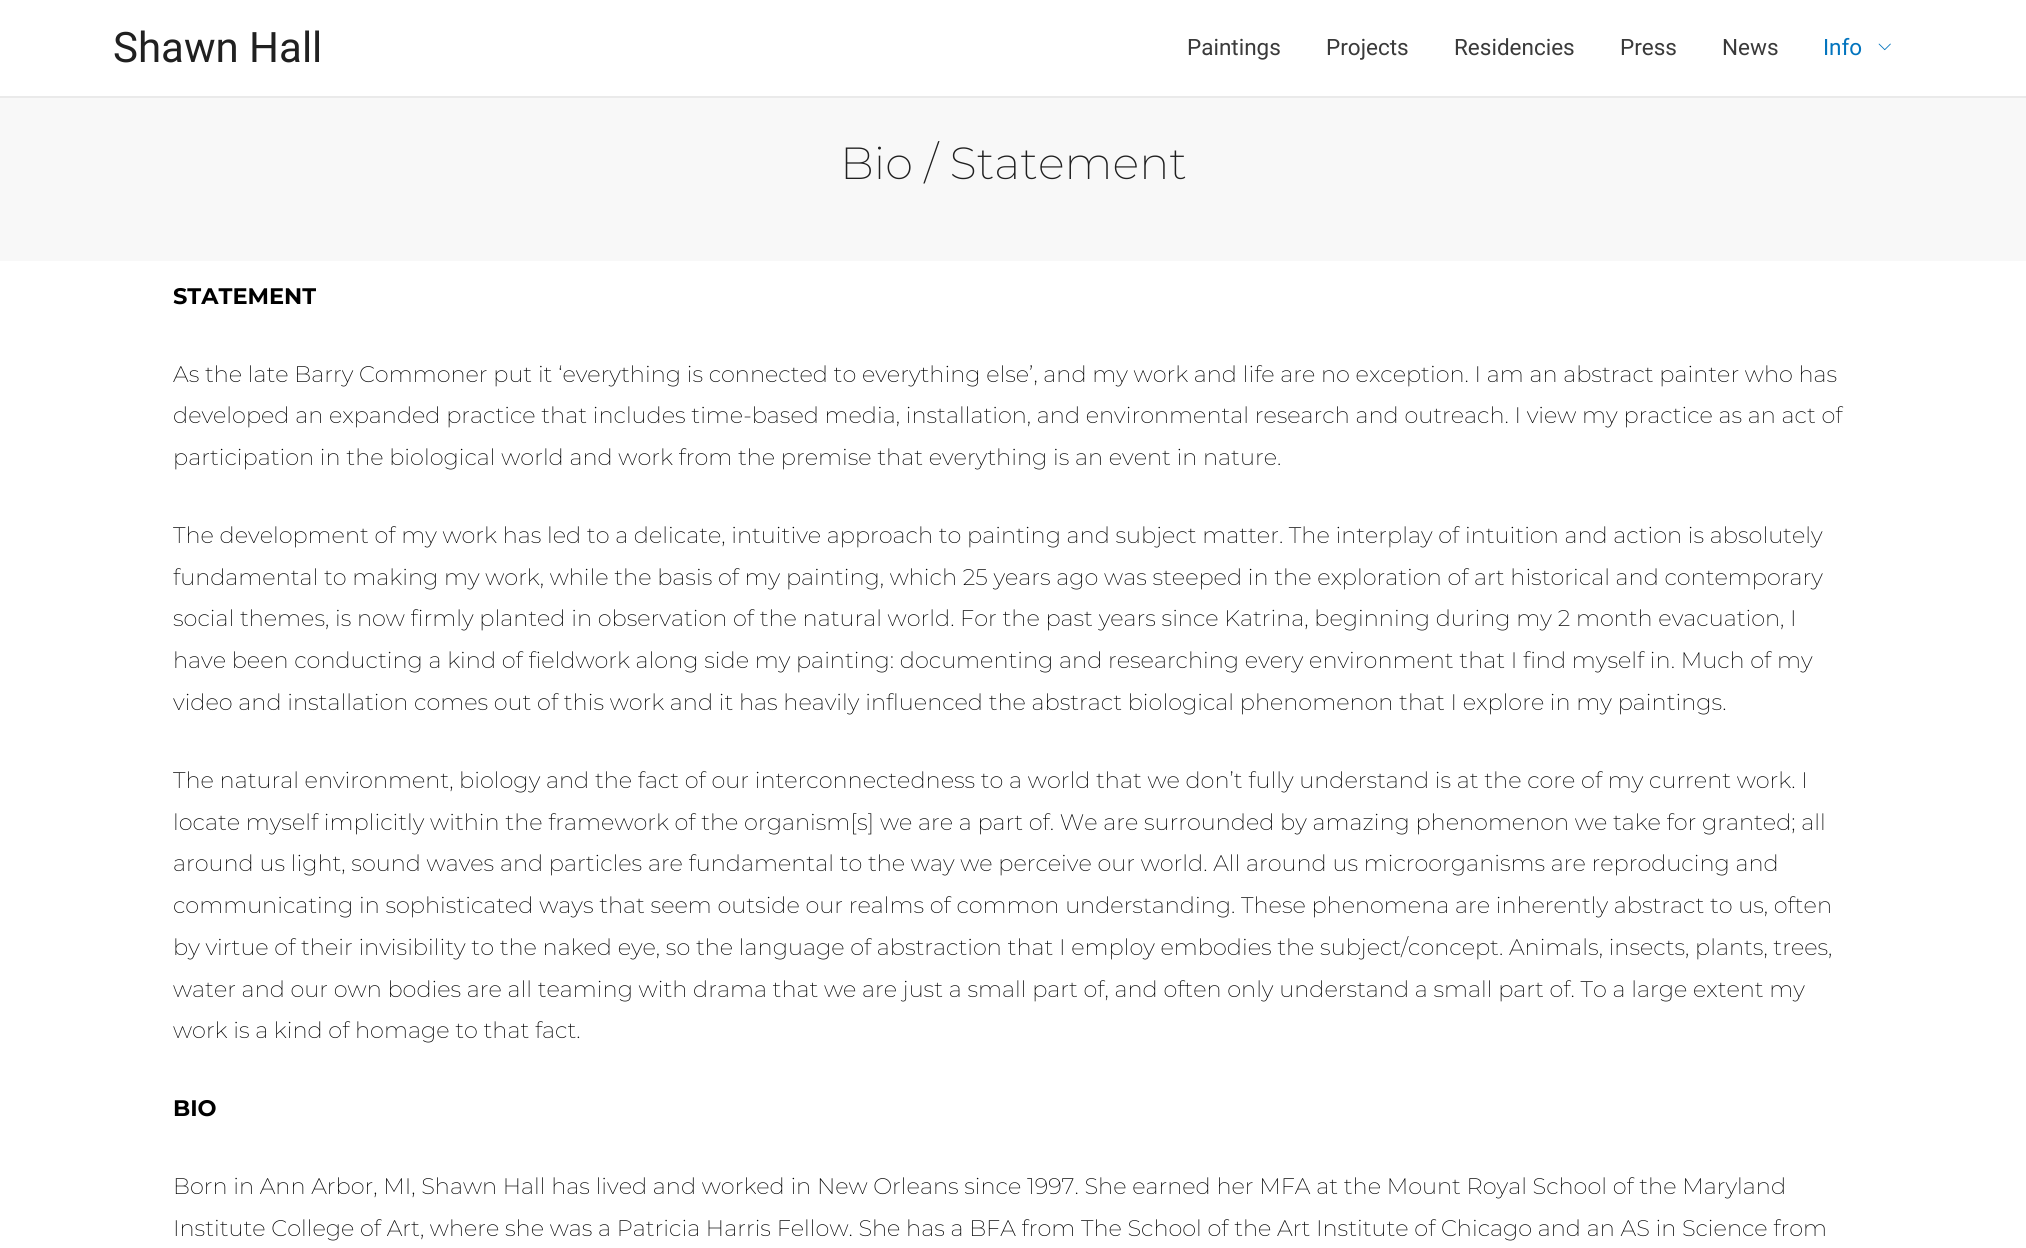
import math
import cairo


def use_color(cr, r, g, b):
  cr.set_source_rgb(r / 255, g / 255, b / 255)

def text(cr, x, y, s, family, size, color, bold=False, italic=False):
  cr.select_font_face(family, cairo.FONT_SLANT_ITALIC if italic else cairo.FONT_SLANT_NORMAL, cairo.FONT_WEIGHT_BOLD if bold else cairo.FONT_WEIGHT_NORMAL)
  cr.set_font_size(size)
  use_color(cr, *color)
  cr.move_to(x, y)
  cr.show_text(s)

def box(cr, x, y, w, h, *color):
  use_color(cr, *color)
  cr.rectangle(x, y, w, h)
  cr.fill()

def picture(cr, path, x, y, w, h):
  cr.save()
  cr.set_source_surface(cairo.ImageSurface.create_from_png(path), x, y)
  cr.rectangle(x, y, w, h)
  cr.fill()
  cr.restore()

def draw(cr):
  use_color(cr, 255, 255, 255)
  cr.paint()
  box(cr, 0, 96, 2026, 2, 234, 234, 234)
  picture(cr, "img_01.png", 1878, 43, 13, 8)
  box(cr, 0, 98, 2026, 163, 248, 248, 248)
  text(cr, 113, 62, "Shawn Hall", "Roboto", 42, (32, 32, 32))
  text(cr, 1187, 55, "Paintings", "Roboto", 22.5, (58, 58, 58))
  text(cr, 1326, 55, "Projects", "Roboto", 22.5, (58, 58, 58))
  text(cr, 1454, 55, "Residencies", "Roboto", 22.5, (58, 58, 58))
  text(cr, 1620, 55, "Press", "Roboto", 22.5, (58, 58, 58))
  text(cr, 1722, 55, "News", "Roboto", 22.5, (58, 58, 58))
  text(cr, 1823, 55, "Info", "Roboto", 22.5, (2, 116, 190))
  text(cr, 840, 179, "Bio / Statement", "Montserrat ExtraLight", 45, (32, 32, 32))
  text(cr, 173, 304, "STATEMENT", "Montserrat", 22.5, (0, 0, 0), bold=True)
  text(cr, 173, 382, "As the late Barry Commoner put it ‘everything is connected to everything else’, and my work and life are no exception. I am an abstract painter who has", "Montserrat ExtraLight", 22.5, (0, 0, 0))
  text(cr, 173, 423, "developed an expanded practice that includes time-based media, installation, and environmental research and outreach. I view my practice as an act of", "Montserrat ExtraLight", 22.5, (0, 0, 0))
  text(cr, 173, 465, "participation in the biological world and work from the premise that everything is an event in nature.", "Montserrat ExtraLight", 22.5, (0, 0, 0))
  text(cr, 173, 543, "The development of my work has led to a delicate, intuitive approach to painting and subject matter. The interplay of intuition and action is absolutely", "Montserrat ExtraLight", 22.5, (0, 0, 0))
  text(cr, 173, 585, "fundamental to making my work, while the basis of my painting, which 25 years ago was steeped in the exploration of art historical and contemporary", "Montserrat ExtraLight", 22.5, (0, 0, 0))
  text(cr, 173, 626, "social themes, is now firmly planted in observation of the natural world. For the past years since Katrina, beginning during my 2 month evacuation, I", "Montserrat ExtraLight", 22.5, (0, 0, 0))
  text(cr, 173, 668, "have been conducting a kind of fieldwork along side my painting: documenting and researching every environment that I find myself in. Much of my", "Montserrat ExtraLight", 22.5, (0, 0, 0))
  text(cr, 173, 710, "video and installation comes out of this work and it has heavily influenced the abstract biological phenomenon that I explore in my paintings.", "Montserrat ExtraLight", 22.5, (0, 0, 0))
  text(cr, 173, 788, "The natural environment, biology and the fact of our interconnectedness to a world that we don’t fully understand is at the core of my current work. I", "Montserrat ExtraLight", 22.5, (0, 0, 0))
  text(cr, 173, 830, "locate myself implicitly within the framework of the organism[s] we are a part of. We are surrounded by amazing phenomenon we take for granted; all", "Montserrat ExtraLight", 22.5, (0, 0, 0))
  text(cr, 173, 871, "around us light, sound waves and particles are fundamental to the way we perceive our world. All around us microorganisms are reproducing and", "Montserrat ExtraLight", 22.5, (0, 0, 0))
  text(cr, 173, 913, "communicating in sophisticated ways that seem outside our realms of common understanding. These phenomena are inherently abstract to us, often", "Montserrat ExtraLight", 22.5, (0, 0, 0))
  text(cr, 173, 955, "by virtue of their invisibility to the naked eye, so the language of abstraction that I employ embodies the subject/concept. Animals, insects, plants, trees,", "Montserrat ExtraLight", 22.5, (0, 0, 0))
  text(cr, 173, 997, "water and our own bodies are all teaming with drama that we are just a small part of, and often only understand a small part of. To a large extent my", "Montserrat ExtraLight", 22.5, (0, 0, 0))
  text(cr, 173, 1038, "work is a kind of homage to that fact.", "Montserrat ExtraLight", 22.5, (0, 0, 0))
  text(cr, 173, 1116, "BIO", "Montserrat", 22.5, (0, 0, 0), bold=True)
  text(cr, 173, 1194, "Born in Ann Arbor, MI, Shawn Hall has lived and worked in New Orleans since 1997. She earned her MFA at the Mount Royal School of the Maryland", "Montserrat ExtraLight", 22.5, (0, 0, 0))
  text(cr, 173, 1236, "Institute College of Art, where she was a Patricia Harris Fellow. She has a BFA from The School of the Art Institute of Chicago and an AS in Science from", "Montserrat ExtraLight", 22.5, (0, 0, 0))


surface = cairo.ImageSurface(cairo.FORMAT_RGB24, 2026, 1248)
cr = cairo.Context(surface)
options = cairo.FontOptions()
options.set_hint_metrics(cairo.HINT_METRICS_OFF)
options.set_hint_style(cairo.HINT_STYLE_NONE)
cr.set_font_options(options)
cr.set_miter_limit(4)
draw(cr)
surface.write_to_png("out.png")
